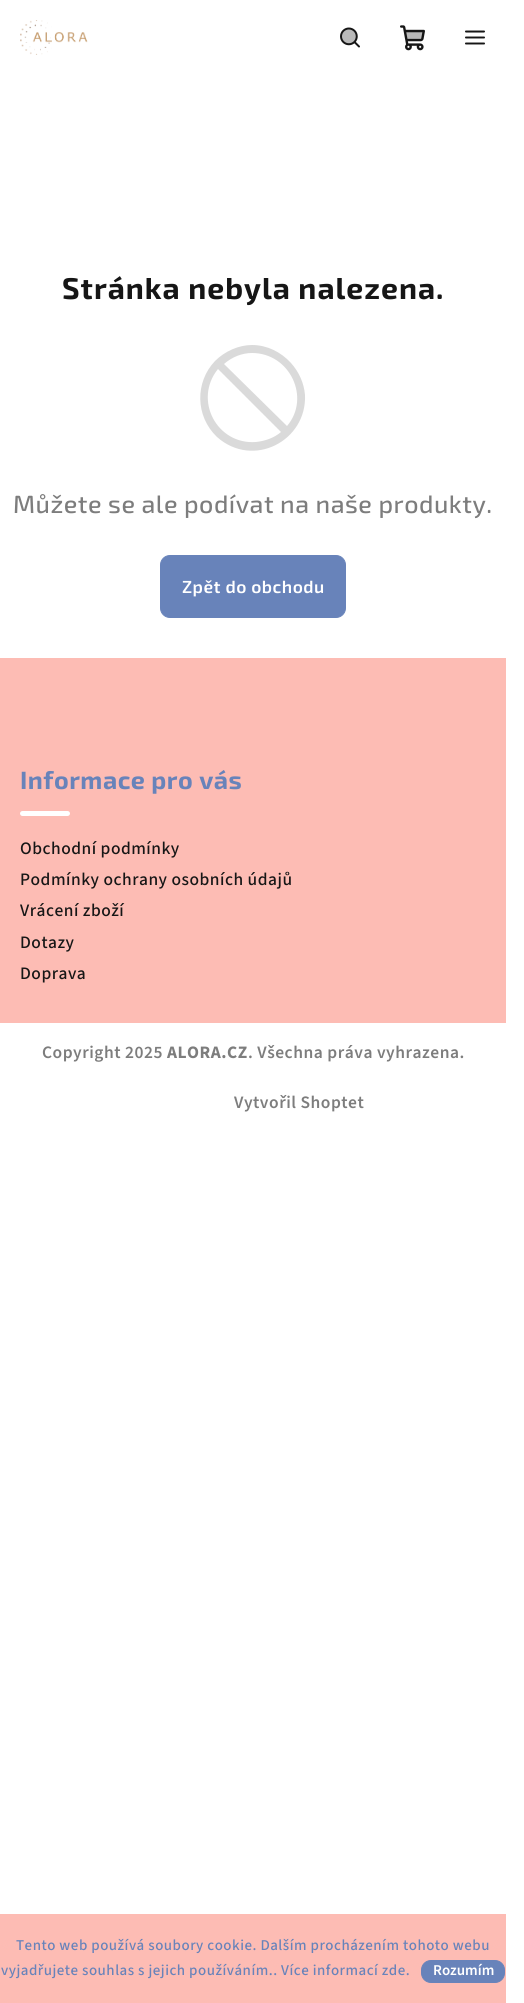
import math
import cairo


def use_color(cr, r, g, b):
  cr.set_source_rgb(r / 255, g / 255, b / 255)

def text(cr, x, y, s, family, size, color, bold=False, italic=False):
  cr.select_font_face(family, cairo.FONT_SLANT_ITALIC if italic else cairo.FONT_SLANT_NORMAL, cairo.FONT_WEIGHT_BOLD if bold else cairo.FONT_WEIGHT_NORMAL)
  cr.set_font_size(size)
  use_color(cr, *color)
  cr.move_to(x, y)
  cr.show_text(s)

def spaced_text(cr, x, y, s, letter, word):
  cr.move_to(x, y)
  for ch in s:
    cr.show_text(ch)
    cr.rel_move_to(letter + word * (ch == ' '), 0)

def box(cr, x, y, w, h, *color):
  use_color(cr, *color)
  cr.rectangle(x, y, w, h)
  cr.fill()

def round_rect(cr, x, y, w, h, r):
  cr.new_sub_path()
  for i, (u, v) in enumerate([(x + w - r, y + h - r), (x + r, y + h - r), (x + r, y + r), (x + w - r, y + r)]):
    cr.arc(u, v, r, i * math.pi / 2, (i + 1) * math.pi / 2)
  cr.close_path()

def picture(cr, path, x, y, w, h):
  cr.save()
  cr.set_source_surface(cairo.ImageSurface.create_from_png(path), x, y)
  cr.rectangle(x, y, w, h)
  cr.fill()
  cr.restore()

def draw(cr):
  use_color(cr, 255, 255, 255)
  cr.paint()
  picture(cr, "img_01.png", 20, 20, 68, 35)
  picture(cr, "img_02.png", 340, 27, 20, 21)
  cr.set_source_rgba(0.086, 0.086, 0.086, 0.3)
  cr.new_path()
  cr.move_to(349, 44.5)
  cr.curve_to(359, 44.5, 359, 28.5, 349, 28.5)
  cr.curve_to(338.5, 28.5, 338.5, 44.5, 349, 44.5)
  cr.close_path()
  cr.fill()
  picture(cr, "img_03.png", 400, 25, 25, 26)
  cr.rectangle(406, 32, 17, 7)
  cr.fill()
  picture(cr, "img_04.png", 465, 30, 20, 15)
  use_color(cr, 218, 218, 218)
  cr.new_path()
  cr.move_to(252, 345)
  cr.curve_to(239, 345, 225, 351, 215, 361)
  cr.curve_to(195, 382, 195, 416, 217, 437)
  cr.curve_to(253, 469, 307, 441, 305, 395)
  cr.curve_to(304, 383, 299, 372, 291, 363)
  cr.curve_to(281, 352, 267, 345, 252, 345)
  cr.close_path()
  cr.move_to(252, 353)
  cr.curve_to(290, 353, 311, 398, 287, 426)
  cr.line_to(224, 364)
  cr.curve_to(232, 357, 242, 353, 252, 353)
  cr.close_path()
  cr.move_to(218, 369)
  cr.line_to(281, 432)
  cr.curve_to(274, 438, 265, 441, 256, 442)
  cr.curve_to(217, 445, 193, 400, 218, 369)
  cr.close_path()
  cr.fill()
  use_color(cr, 104, 131, 186)
  round_rect(cr, 160.5, 555.5, 185, 62, 9.5)
  cr.fill_preserve()
  cr.set_line_width(1)
  cr.stroke()
  box(cr, 0, 658, 506, 365, 253, 188, 180)
  use_color(cr, 255, 255, 255)
  round_rect(cr, 20, 811, 50, 5, 2.5)
  cr.fill()
  box(cr, 0, 1914, 506, 89, 253, 188, 180)
  use_color(cr, 104, 131, 186)
  round_rect(cr, 421.5, 1960.5, 83, 22, 9.5)
  cr.fill_preserve()
  cr.stroke()
  cr.select_font_face("Exo 2", cairo.FONT_SLANT_NORMAL, cairo.FONT_WEIGHT_BOLD)
  cr.set_font_size(30)
  use_color(cr, 22, 22, 22)
  spaced_text(cr, 62, 299, "Stránka nebyla nalezena.", 1, 0)
  cr.select_font_face("Exo 2 Medium")
  cr.set_font_size(25)
  use_color(cr, 125, 125, 125)
  spaced_text(cr, 13, 513, "Můžete se ale podívat na naše produkty.", 0.5, 0)
  cr.select_font_face("Exo 2 SemiBold")
  cr.set_font_size(17.5)
  use_color(cr, 255, 255, 255)
  spaced_text(cr, 182, 593, "Zpět do obchodu", 0.5, 0)
  cr.select_font_face("Exo 2", cairo.FONT_SLANT_NORMAL, cairo.FONT_WEIGHT_BOLD)
  cr.set_font_size(25)
  use_color(cr, 104, 131, 186)
  spaced_text(cr, 20, 789, "Informace pro vás", 0.5, 0)
  cr.select_font_face("Source Sans 3 Medium")
  cr.set_font_size(17.5)
  use_color(cr, 22, 22, 22)
  spaced_text(cr, 20, 854, "Obchodní podmínky", 0.5, 0)
  spaced_text(cr, 20, 885, "Podmínky ochrany osobních údajů", 0.5, 0)
  spaced_text(cr, 20, 916, "Vrácení zboží", 0.5, 0)
  spaced_text(cr, 20, 948, "Dotazy", 0.5, 0)
  spaced_text(cr, 20, 979, "Doprava", 0.5, 0)
  cr.select_font_face("Source Sans 3 SemiBold")
  use_color(cr, 125, 125, 125)
  spaced_text(cr, 42, 1058, "Copyright 2025", 0.5, 0)
  cr.select_font_face("Source Sans 3", cairo.FONT_SLANT_NORMAL, cairo.FONT_WEIGHT_BOLD)
  spaced_text(cr, 167, 1058, "ALORA.CZ", 0.5, 0)
  cr.select_font_face("Source Sans 3 SemiBold")
  spaced_text(cr, 248, 1058, ". Všechna práva vyhrazena.", 0.5, 0)
  spaced_text(cr, 234, 1108, "Vytvořil Shoptet", 0.5, 0)
  cr.select_font_face("Source Sans 3 Medium")
  cr.set_font_size(15)
  use_color(cr, 104, 131, 186)
  spaced_text(cr, 16, 1950, "Tento web používá soubory cookie. Dalším procházením tohoto webu", 0.5, 0)
  spaced_text(cr, 1, 1975, "vyjadřujete souhlas s jejich používáním.. Více informací zde.", 0.5, 0)
  text(cr, 433, 1975, "Rozumím", "Source Sans 3 SemiBold", 15, (255, 255, 255))


surface = cairo.ImageSurface(cairo.FORMAT_RGB24, 524, 2003)
cr = cairo.Context(surface)
options = cairo.FontOptions()
options.set_hint_metrics(cairo.HINT_METRICS_OFF)
options.set_hint_style(cairo.HINT_STYLE_NONE)
cr.set_font_options(options)
cr.set_miter_limit(4)
draw(cr)
surface.write_to_png("out.png")
